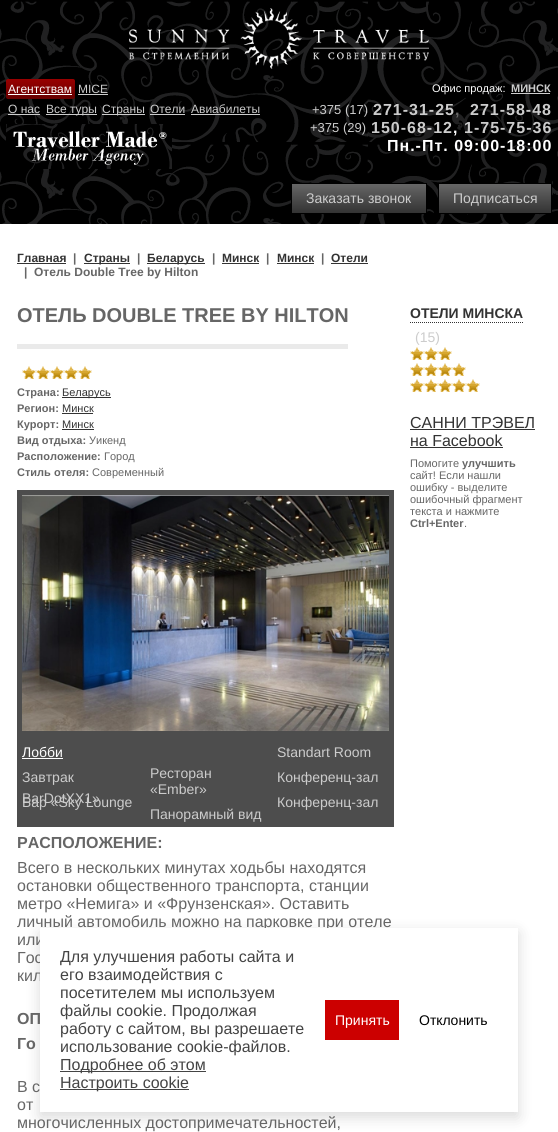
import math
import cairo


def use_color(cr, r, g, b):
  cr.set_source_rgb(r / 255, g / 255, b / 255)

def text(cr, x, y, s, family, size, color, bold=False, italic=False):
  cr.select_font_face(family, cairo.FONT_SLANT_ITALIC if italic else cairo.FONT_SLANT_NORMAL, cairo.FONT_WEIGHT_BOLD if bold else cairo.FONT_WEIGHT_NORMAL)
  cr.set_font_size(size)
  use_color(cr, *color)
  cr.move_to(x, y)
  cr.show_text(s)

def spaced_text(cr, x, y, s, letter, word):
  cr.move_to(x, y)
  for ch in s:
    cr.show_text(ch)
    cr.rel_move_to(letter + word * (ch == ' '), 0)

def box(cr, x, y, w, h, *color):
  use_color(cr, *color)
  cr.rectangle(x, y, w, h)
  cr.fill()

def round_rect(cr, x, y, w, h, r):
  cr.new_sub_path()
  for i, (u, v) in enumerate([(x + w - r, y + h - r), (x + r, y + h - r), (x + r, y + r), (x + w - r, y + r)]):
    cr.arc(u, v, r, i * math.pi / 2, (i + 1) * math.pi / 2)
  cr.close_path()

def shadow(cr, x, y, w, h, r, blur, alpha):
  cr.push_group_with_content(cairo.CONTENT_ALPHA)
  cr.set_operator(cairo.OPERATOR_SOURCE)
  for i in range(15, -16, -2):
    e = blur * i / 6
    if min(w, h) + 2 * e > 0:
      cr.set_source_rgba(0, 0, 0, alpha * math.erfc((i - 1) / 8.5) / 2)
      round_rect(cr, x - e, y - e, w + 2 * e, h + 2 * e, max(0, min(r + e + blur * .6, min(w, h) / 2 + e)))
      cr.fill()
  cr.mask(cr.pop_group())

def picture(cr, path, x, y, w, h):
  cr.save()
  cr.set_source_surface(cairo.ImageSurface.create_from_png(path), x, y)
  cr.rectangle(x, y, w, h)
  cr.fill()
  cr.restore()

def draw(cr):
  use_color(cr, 0, 0, 0)
  cr.paint()
  picture(cr, "img_01.png", 0, 1, 558, 223)
  picture(cr, "img_02.png", 129, 8, 300, 61)
  gradient = cairo.LinearGradient(41, 79, 41, 99)
  gradient.add_color_stop_rgba(0, 0.6, 0, 0, 1)
  gradient.add_color_stop_rgba(1, 0.4, 0, 0, 1)
  cr.set_source(gradient)
  round_rect(cr, 6, 79, 69, 20, 2)
  cr.fill()
  box(cr, 8, 94, 64, 1, 255, 255, 255)
  box(cr, 78, 94, 30, 1, 204, 204, 204)
  box(cr, 8, 114, 32, 1, 204, 204, 204)
  box(cr, 46, 114, 51, 1, 204, 204, 204)
  box(cr, 102, 114, 43, 1, 204, 204, 204)
  box(cr, 150, 114, 35, 1, 204, 204, 204)
  box(cr, 191, 114, 69, 1, 204, 204, 204)
  picture(cr, "img_03.png", 6, 124, 166, 45)
  box(cr, 511, 93, 39, 1, 204, 204, 204)
  gradient = cairo.LinearGradient(359, 184, 359, 213)
  gradient.add_color_stop_rgba(0, 0.4, 0.4, 0.4, 1)
  gradient.add_color_stop_rgba(1, 0.2, 0.2, 0.2, 1)
  cr.set_source(gradient)
  cr.rectangle(292, 184, 134, 29)
  cr.fill()
  cr.rectangle(291.5, 183.5, 135, 30)
  use_color(cr, 0, 0, 0)
  cr.set_line_width(1)
  cr.stroke()
  gradient = cairo.LinearGradient(495, 184, 495, 213)
  gradient.add_color_stop_rgba(0, 0.4, 0.4, 0.4, 1)
  gradient.add_color_stop_rgba(1, 0.2, 0.2, 0.2, 1)
  cr.set_source(gradient)
  cr.rectangle(439, 184, 112, 29)
  cr.fill()
  cr.rectangle(438.5, 183.5, 113, 30)
  use_color(cr, 0, 0, 0)
  cr.stroke()
  box(cr, 0, 224, 558, 908, 255, 255, 255)
  box(cr, 17, 263, 49, 1, 51, 51, 51)
  box(cr, 84, 263, 46, 1, 51, 51, 51)
  box(cr, 147, 263, 58, 1, 51, 51, 51)
  box(cr, 222, 263, 37, 1, 51, 51, 51)
  box(cr, 277, 263, 37, 1, 51, 51, 51)
  box(cr, 331, 263, 37, 1, 51, 51, 51)
  box(cr, 17, 344, 331, 5, 234, 234, 234)
  picture(cr, "img_04.png", 22, 366, 70, 13)
  box(cr, 62, 397, 49, 1, 51, 51, 51)
  box(cr, 62, 413, 31, 1, 51, 51, 51)
  box(cr, 62, 429, 32, 1, 51, 51, 51)
  box(cr, 17, 490, 377, 337, 77, 77, 77)
  picture(cr, "img_05.png", 22, 495, 367, 236)
  box(cr, 22, 758, 41, 1, 255, 255, 255)
  cr.new_path()
  cr.move_to(410, 322.5)
  cr.line_to(523, 322.5)
  use_color(cr, 51, 51, 51)
  cr.set_dash([1, 1])
  cr.stroke()
  picture(cr, "img_06.png", 410, 347, 42, 13)
  picture(cr, "img_07.png", 410, 363, 56, 13)
  picture(cr, "img_04.png", 410, 379, 70, 13)
  box(cr, 410, 429, 125, 1, 51, 51, 51)
  box(cr, 410, 447, 93, 1, 51, 51, 51)
  use_color(cr, 0, 0, 0)
  shadow(cr, 40, 933, 478, 184, 0, 7.5, 0.15)
  text(cr, 8, 93, "Агентствам", "Liberation Sans", 12, (255, 255, 255))
  text(cr, 78, 93, "MICE", "Liberation Sans", 12, (204, 204, 204))
  text(cr, 8, 113, "О нас", "Liberation Sans", 12, (204, 204, 204))
  text(cr, 46, 113, "Все туры", "Liberation Sans", 12, (204, 204, 204))
  text(cr, 102, 113, "Страны", "Liberation Sans", 12, (204, 204, 204))
  text(cr, 150, 113, "Отели", "Liberation Sans", 12, (204, 204, 204))
  text(cr, 191, 113, "Авиабилеты", "Liberation Sans", 12, (204, 204, 204))
  text(cr, 432, 92, "Офис продаж:", "Liberation Sans", 11, (255, 255, 255))
  text(cr, 511, 92, "МИНСК", "Liberation Sans", 11, (204, 204, 204), bold=True)
  text(cr, 312, 114, "+375 (17)", "Liberation Sans", 13, (204, 204, 204))
  cr.select_font_face("Liberation Sans", cairo.FONT_SLANT_NORMAL, cairo.FONT_WEIGHT_BOLD)
  cr.set_font_size(16)
  spaced_text(cr, 373, 115, "271-31-25", 1, 0)
  use_color(cr, 102, 102, 102)
  spaced_text(cr, 455, 115, ",", 1, 0)
  use_color(cr, 204, 204, 204)
  spaced_text(cr, 470, 115, "271-58-48", 1, 0)
  text(cr, 310, 132, "+375 (29)", "Liberation Sans", 13, (204, 204, 204))
  cr.select_font_face("Liberation Sans", cairo.FONT_SLANT_NORMAL, cairo.FONT_WEIGHT_BOLD)
  cr.set_font_size(16)
  spaced_text(cr, 371, 133, "150-68-12", 1, 0)
  use_color(cr, 255, 255, 255)
  spaced_text(cr, 453, 133, ",", 1, 0)
  use_color(cr, 204, 204, 204)
  spaced_text(cr, 464, 133, "1-75-75-36", 1, 0)
  use_color(cr, 255, 255, 255)
  spaced_text(cr, 387, 151, "Пн.-Пт. 09:00-18:00", 1, 0)
  text(cr, 306, 203, "Заказать звонок", "Liberation Sans", 14, (204, 204, 204))
  text(cr, 453, 203, "Подписаться", "Liberation Sans", 14, (204, 204, 204))
  text(cr, 17, 262, "Главная", "Liberation Sans", 12, (51, 51, 51), bold=True)
  text(cr, 73, 262, "|", "Liberation Sans", 12, (102, 102, 102), bold=True)
  text(cr, 84, 262, "Страны", "Liberation Sans", 12, (51, 51, 51), bold=True)
  text(cr, 137, 262, "|", "Liberation Sans", 12, (102, 102, 102), bold=True)
  text(cr, 147, 262, "Беларусь", "Liberation Sans", 12, (51, 51, 51), bold=True)
  text(cr, 212, 262, "|", "Liberation Sans", 12, (102, 102, 102), bold=True)
  text(cr, 222, 262, "Минск", "Liberation Sans", 12, (51, 51, 51), bold=True)
  text(cr, 266, 262, "|", "Liberation Sans", 12, (102, 102, 102), bold=True)
  text(cr, 277, 262, "Минск", "Liberation Sans", 12, (51, 51, 51), bold=True)
  text(cr, 321, 262, "|", "Liberation Sans", 12, (102, 102, 102), bold=True)
  text(cr, 331, 262, "Отели", "Liberation Sans", 12, (51, 51, 51), bold=True)
  text(cr, 24, 276, "|", "Liberation Sans", 12, (102, 102, 102), bold=True)
  text(cr, 34, 276, "Отель Double Tree by Hilton", "Liberation Sans", 12, (102, 102, 102), bold=True)
  text(cr, 17, 322, "ОТЕЛЬ DOUBLE TREE BY HILTON", "Liberation Sans", 20, (102, 102, 102), bold=True)
  text(cr, 17, 396, "Страна:", "Liberation Sans", 11, (102, 102, 102), bold=True)
  text(cr, 62, 396, "Беларусь", "Liberation Sans", 11, (51, 51, 51))
  text(cr, 17, 412, "Регион:", "Liberation Sans", 11, (102, 102, 102), bold=True)
  text(cr, 62, 412, "Минск", "Liberation Sans", 11, (51, 51, 51))
  text(cr, 17, 428, "Курорт:", "Liberation Sans", 11, (102, 102, 102), bold=True)
  text(cr, 62, 428, "Минск", "Liberation Sans", 11, (51, 51, 51))
  text(cr, 17, 444, "Вид отдыха:", "Liberation Sans", 11, (102, 102, 102), bold=True)
  text(cr, 89, 444, "Уикенд", "Liberation Sans", 11, (102, 102, 102))
  text(cr, 17, 460, "Расположение:", "Liberation Sans", 11, (102, 102, 102), bold=True)
  text(cr, 104, 460, "Город", "Liberation Sans", 11, (102, 102, 102))
  text(cr, 17, 476, "Стиль отеля:", "Liberation Sans", 11, (102, 102, 102), bold=True)
  text(cr, 92, 476, "Современный", "Liberation Sans", 11, (102, 102, 102))
  text(cr, 22, 757, "Лобби", "Liberation Sans", 14, (255, 255, 255))
  text(cr, 277, 757, "Standart Room", "Liberation Sans", 14, (204, 204, 204))
  text(cr, 22, 782, "Завтрак", "Liberation Sans", 14, (204, 204, 204))
  text(cr, 150, 778, "Ресторан", "Liberation Sans", 14, (204, 204, 204))
  text(cr, 150, 794, "«Ember»", "Liberation Sans", 14, (204, 204, 204))
  text(cr, 277, 782, "Конференц-зал", "Liberation Sans", 14, (204, 204, 204))
  text(cr, 22, 807, "Бар «Sky Lounge", "Liberation Sans", 14, (204, 204, 204))
  text(cr, 22, 803, "BarDotXX1»", "Liberation Sans", 14, (204, 204, 204))
  text(cr, 277, 807, "Конференц-зал", "Liberation Sans", 14, (204, 204, 204))
  text(cr, 150, 819, "Панорамный вид", "Liberation Sans", 14, (204, 204, 204))
  text(cr, 17, 848, "РАСПОЛОЖЕНИЕ:", "Liberation Sans", 16, (102, 102, 102), bold=True)
  text(cr, 17, 873, "Всего в нескольких минутах ходьбы находятся", "Liberation Sans", 16, (102, 102, 102))
  text(cr, 17, 891, "остановки общественного транспорта, станции", "Liberation Sans", 16, (102, 102, 102))
  text(cr, 17, 909, "метро «Немига» и «Фрунзенская». Оставить", "Liberation Sans", 16, (102, 102, 102))
  text(cr, 17, 927, "личный автомобиль можно на парковке при отеле", "Liberation Sans", 16, (102, 102, 102))
  text(cr, 17, 945, "или", "Liberation Sans", 16, (102, 102, 102))
  text(cr, 17, 963, "Гос", "Liberation Sans", 16, (102, 102, 102))
  text(cr, 17, 981, "кил", "Liberation Sans", 16, (102, 102, 102))
  text(cr, 17, 1024, "ОП", "Liberation Sans", 16, (102, 102, 102), bold=True)
  text(cr, 17, 1049, "Го", "Liberation Sans", 16, (102, 102, 102), bold=True)
  text(cr, 17, 1092, "В с", "Liberation Sans", 16, (102, 102, 102))
  text(cr, 17, 1110, "от", "Liberation Sans", 16, (102, 102, 102))
  text(cr, 17, 1128, "многочисленных достопримечательностей,", "Liberation Sans", 16, (102, 102, 102))
  text(cr, 410, 318, "ОТЕЛИ МИНСКА", "Liberation Sans", 14, (51, 51, 51), bold=True)
  text(cr, 415, 342, "(15)", "Liberation Sans", 14, (204, 204, 204))
  text(cr, 410, 428, "САННИ ТРЭВЕЛ", "Liberation Sans", 16, (51, 51, 51))
  text(cr, 410, 446, "на Facebook", "Liberation Sans", 16, (51, 51, 51))
  text(cr, 410, 467, "Помогите", "Liberation Sans", 11, (102, 102, 102))
  text(cr, 462, 467, "улучшить", "Liberation Sans", 11, (102, 102, 102), bold=True)
  text(cr, 410, 479, "сайт! Если нашли", "Liberation Sans", 11, (102, 102, 102))
  text(cr, 410, 491, "ошибку - выделите", "Liberation Sans", 11, (102, 102, 102))
  text(cr, 410, 503, "ошибочный фрагмент", "Liberation Sans", 11, (102, 102, 102))
  text(cr, 410, 515, "текста и нажмите", "Liberation Sans", 11, (102, 102, 102))
  text(cr, 410, 527, "Ctrl+Enter", "Liberation Sans", 11, (102, 102, 102), bold=True)
  text(cr, 464, 527, ".", "Liberation Sans", 11, (102, 102, 102))
  box(cr, 40, 928, 478, 184, 255, 255, 255)
  text(cr, 60, 962, "Для улучшения работы сайта и", "Liberation Sans", 16, (68, 68, 68))
  text(cr, 60, 980, "его взаимодействия с", "Liberation Sans", 16, (68, 68, 68))
  text(cr, 60, 998, "посетителем мы используем", "Liberation Sans", 16, (68, 68, 68))
  text(cr, 60, 1016, "файлы cookie. Продолжая", "Liberation Sans", 16, (68, 68, 68))
  text(cr, 60, 1034, "работу с сайтом, вы разрешаете", "Liberation Sans", 16, (68, 68, 68))
  text(cr, 60, 1052, "использование cookie-файлов.", "Liberation Sans", 16, (68, 68, 68))
  box(cr, 60, 1071, 146, 1, 68, 68, 68)
  text(cr, 60, 1070, "Подробнее об этом", "Liberation Sans", 16, (68, 68, 68))
  box(cr, 60, 1089, 129, 1, 68, 68, 68)
  text(cr, 60, 1088, "Настроить сookie", "Liberation Sans", 16, (68, 68, 68))
  box(cr, 325, 1000, 74, 40, 204, 0, 0)
  text(cr, 335, 1025, "Принять", "Liberation Sans", 14, (255, 255, 255))
  text(cr, 419, 1025, "Отклонить", "Liberation Sans", 14, (0, 0, 0))


surface = cairo.ImageSurface(cairo.FORMAT_RGB24, 558, 1132)
cr = cairo.Context(surface)
options = cairo.FontOptions()
options.set_hint_metrics(cairo.HINT_METRICS_OFF)
options.set_hint_style(cairo.HINT_STYLE_NONE)
cr.set_font_options(options)
cr.set_miter_limit(4)
draw(cr)
surface.write_to_png("out.png")
